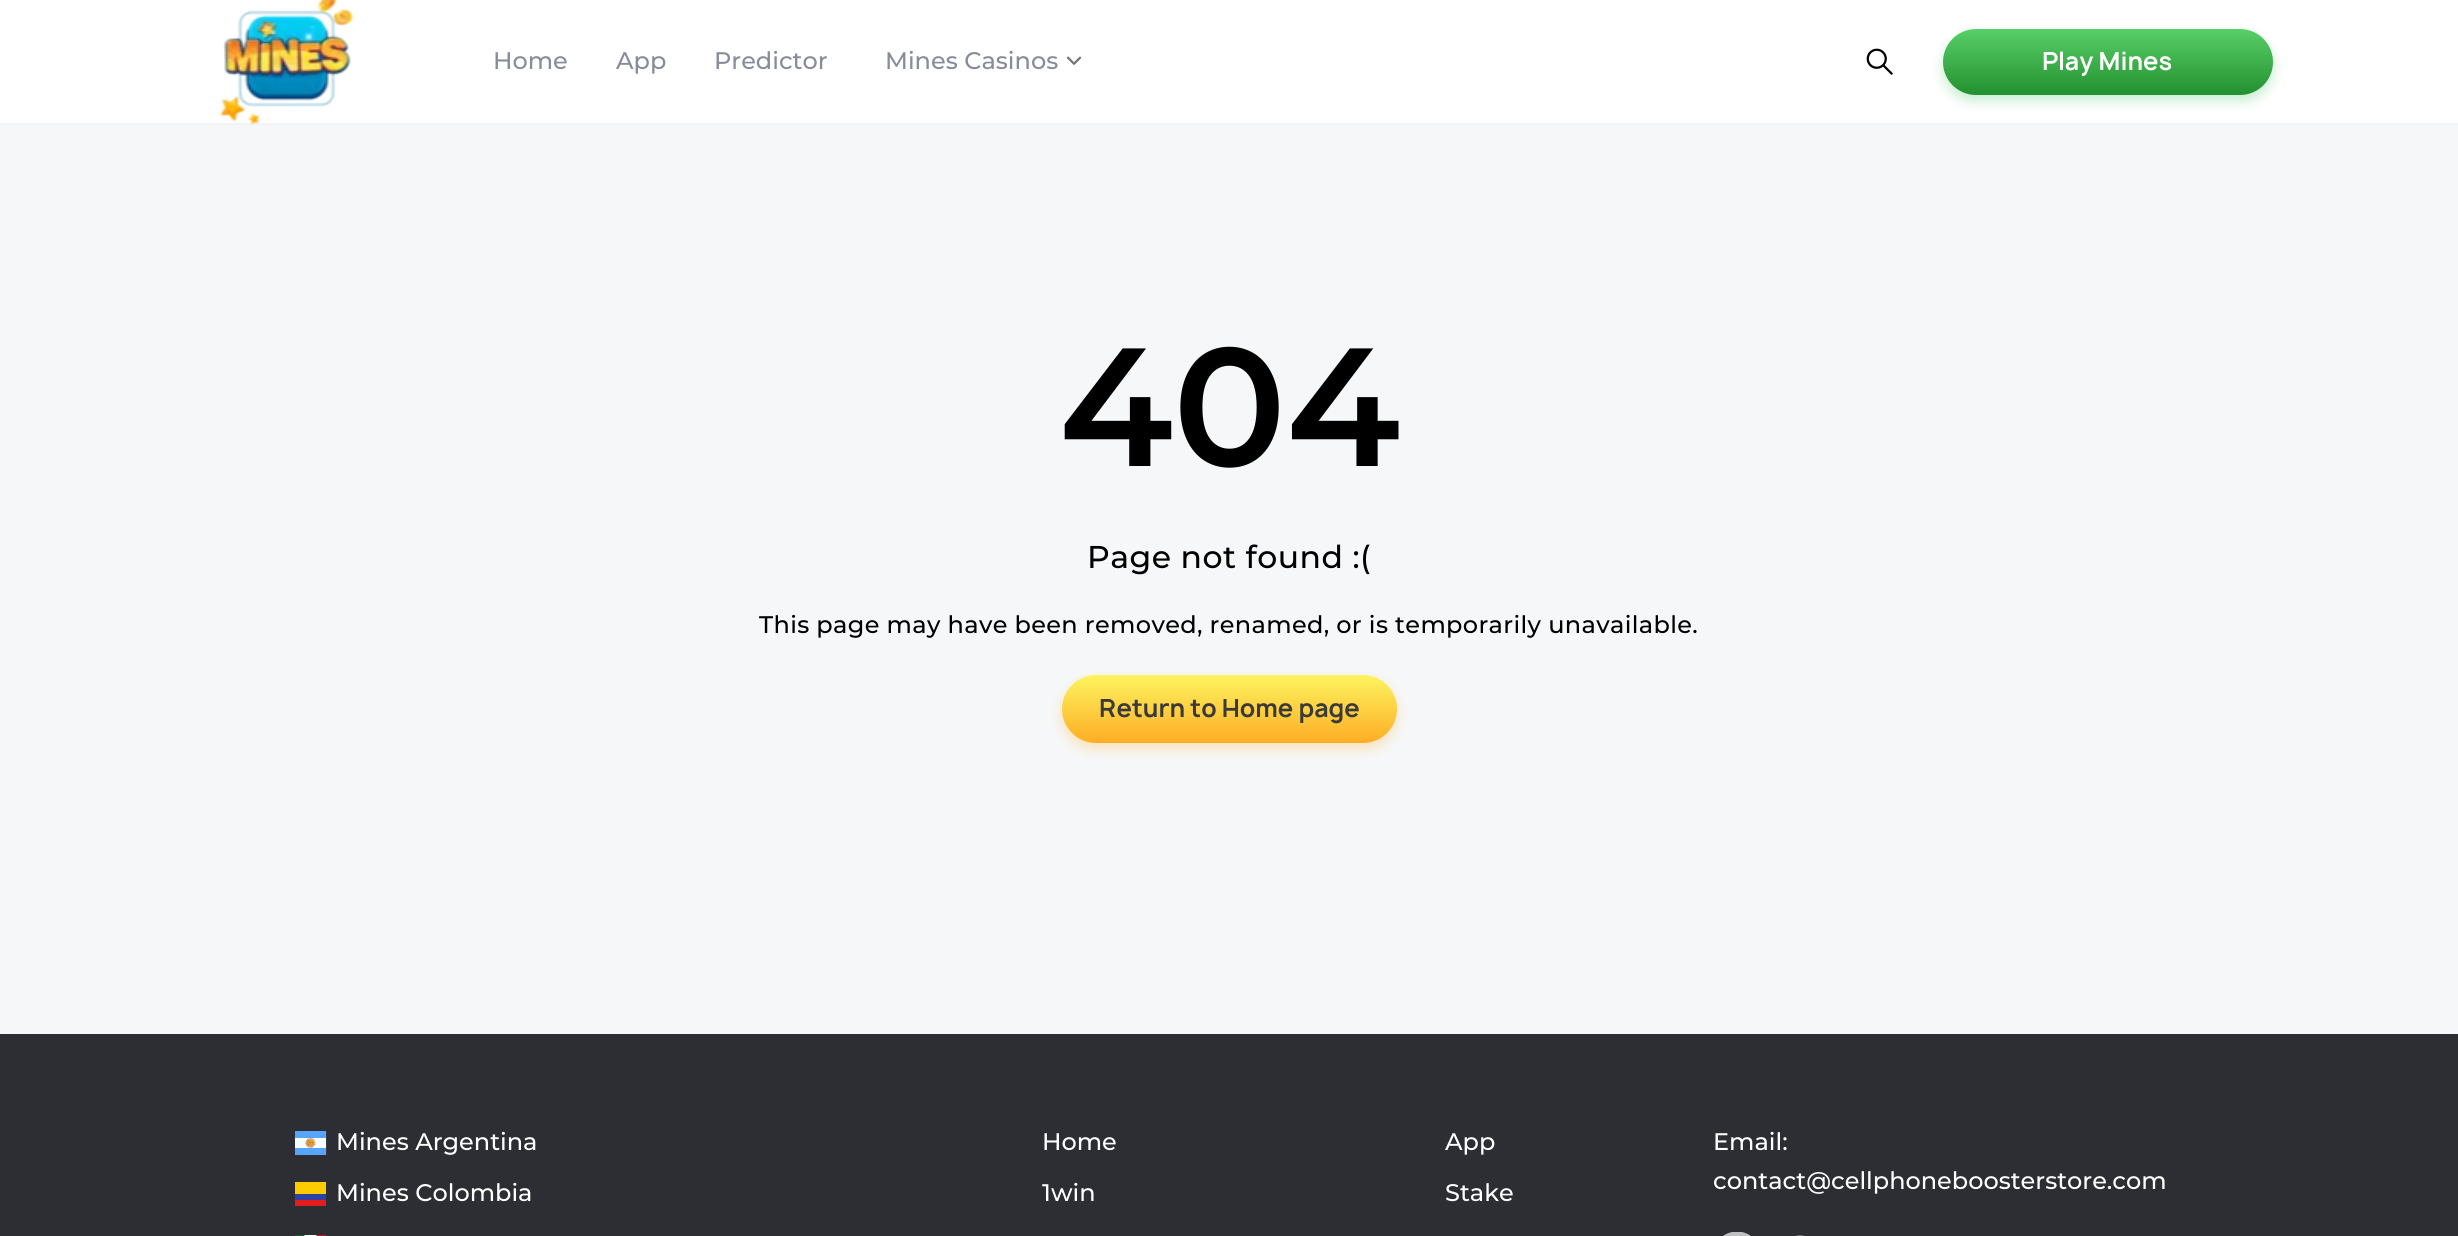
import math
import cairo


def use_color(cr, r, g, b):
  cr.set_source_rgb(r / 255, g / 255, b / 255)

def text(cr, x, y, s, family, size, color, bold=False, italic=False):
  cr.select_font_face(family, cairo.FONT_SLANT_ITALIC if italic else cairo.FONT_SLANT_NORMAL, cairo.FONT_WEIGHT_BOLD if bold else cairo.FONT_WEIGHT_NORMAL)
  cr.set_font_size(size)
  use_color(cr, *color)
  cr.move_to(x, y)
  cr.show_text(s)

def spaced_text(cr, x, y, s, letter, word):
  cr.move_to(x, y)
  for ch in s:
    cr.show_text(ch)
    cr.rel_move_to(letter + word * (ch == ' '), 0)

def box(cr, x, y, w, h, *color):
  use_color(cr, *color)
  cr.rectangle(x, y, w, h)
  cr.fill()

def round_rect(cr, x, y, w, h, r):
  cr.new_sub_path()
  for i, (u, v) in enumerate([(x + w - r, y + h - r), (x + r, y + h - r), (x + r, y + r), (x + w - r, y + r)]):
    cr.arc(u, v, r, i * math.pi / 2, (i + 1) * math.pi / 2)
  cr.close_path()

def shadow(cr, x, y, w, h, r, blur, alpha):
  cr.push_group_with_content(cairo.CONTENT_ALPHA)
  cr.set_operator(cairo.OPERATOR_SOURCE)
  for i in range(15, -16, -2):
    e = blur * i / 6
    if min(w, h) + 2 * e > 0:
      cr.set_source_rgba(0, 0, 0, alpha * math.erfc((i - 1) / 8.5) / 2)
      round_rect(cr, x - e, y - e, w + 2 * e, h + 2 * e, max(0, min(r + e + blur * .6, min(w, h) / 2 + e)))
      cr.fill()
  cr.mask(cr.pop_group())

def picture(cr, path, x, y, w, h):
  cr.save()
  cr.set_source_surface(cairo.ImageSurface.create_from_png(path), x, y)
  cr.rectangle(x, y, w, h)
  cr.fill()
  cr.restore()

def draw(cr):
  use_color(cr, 246, 247, 248)
  cr.paint()
  box(cr, 0, 0, 2458, 123, 255, 255, 255)
  box(cr, 0, 123, 2458, 2, 241, 243, 245)
  picture(cr, "img_01.png", 219, 0, 135, 125)
  picture(cr, "img_02.png", 1067, 56, 15, 9)
  picture(cr, "img_03.png", 1866, 48, 27, 27)
  use_color(cr, 69, 195, 104)
  shadow(cr, 1943, 35, 330, 66, 33, 6, 0.3)
  gradient = cairo.LinearGradient(2108, 28, 2108, 95)
  gradient.add_color_stop_rgba(0, 0.349, 0.816, 0.412, 1)
  gradient.add_color_stop_rgba(1, 0.137, 0.565, 0.184, 1)
  cr.set_source(gradient)
  round_rect(cr, 1943, 29, 330, 66, 33)
  cr.fill()
  use_color(cr, 254, 181, 44)
  shadow(cr, 1062, 681, 335, 68, 34, 6, 0.3)
  gradient = cairo.LinearGradient(1229, 675, 1229, 743)
  gradient.add_color_stop_rgba(0, 0.988, 0.957, 0.373, 1)
  gradient.add_color_stop_rgba(1, 0.996, 0.678, 0.145, 1)
  cr.set_source(gradient)
  round_rect(cr, 1062, 675, 335, 68, 34)
  cr.fill()
  box(cr, 0, 1034, 2458, 202, 44, 46, 51)
  picture(cr, "img_04.png", 295, 1131, 32, 24)
  picture(cr, "img_05.png", 295, 1182, 32, 24)
  picture(cr, "img_06.png", 295, 1235, 32, 1)
  picture(cr, "img_07.png", 1723, 1232, 28, 4)
  picture(cr, "img_08.png", 1796, 1235, 8, 1)
  text(cr, 493, 69, "Home", "Montserrat Medium", 24, (135, 140, 154))
  text(cr, 616, 69, "App", "Montserrat Medium", 24, (135, 140, 154))
  text(cr, 714, 69, "Predictor", "Montserrat Medium", 24, (135, 140, 154))
  text(cr, 885, 69, "Mines Casinos", "Montserrat Medium", 24, (135, 140, 154))
  text(cr, 2042, 70, "Play Mines", "Manrope", 24, (255, 255, 255), bold=True)
  text(cr, 1059, 466, "404", "Montserrat SemiBold", 168, (0, 0, 0))
  cr.select_font_face("Montserrat Medium")
  cr.set_font_size(31.5)
  spaced_text(cr, 1087, 568, "Page not found :(", 0.5, 0)
  cr.set_font_size(24)
  spaced_text(cr, 759, 633, "This page may have been removed, renamed, or is temporarily unavailable.", 0.35, 0)
  text(cr, 1099, 717, "Return to Home page", "Manrope", 24, (58, 58, 58), bold=True)
  text(cr, 336, 1150, "Mines Argentina", "Montserrat Medium", 24, (255, 255, 255))
  text(cr, 336, 1201, "Mines Colombia", "Montserrat Medium", 24, (255, 255, 255))
  text(cr, 1042, 1150, "Home", "Montserrat Medium", 24, (255, 255, 255))
  text(cr, 1445, 1150, "App", "Montserrat Medium", 24, (255, 255, 255))
  text(cr, 1042, 1201, "1win", "Montserrat Medium", 24, (255, 255, 255))
  text(cr, 1445, 1201, "Stake", "Montserrat Medium", 24, (255, 255, 255))
  text(cr, 1713, 1150, "Email:", "Montserrat Medium", 24, (255, 255, 255))
  text(cr, 1713, 1189, "contact@cellphoneboosterstore.com", "Montserrat Medium", 24, (255, 255, 255))


surface = cairo.ImageSurface(cairo.FORMAT_RGB24, 2458, 1236)
cr = cairo.Context(surface)
options = cairo.FontOptions()
options.set_hint_metrics(cairo.HINT_METRICS_OFF)
options.set_hint_style(cairo.HINT_STYLE_NONE)
cr.set_font_options(options)
cr.set_miter_limit(4)
draw(cr)
surface.write_to_png("out.png")
